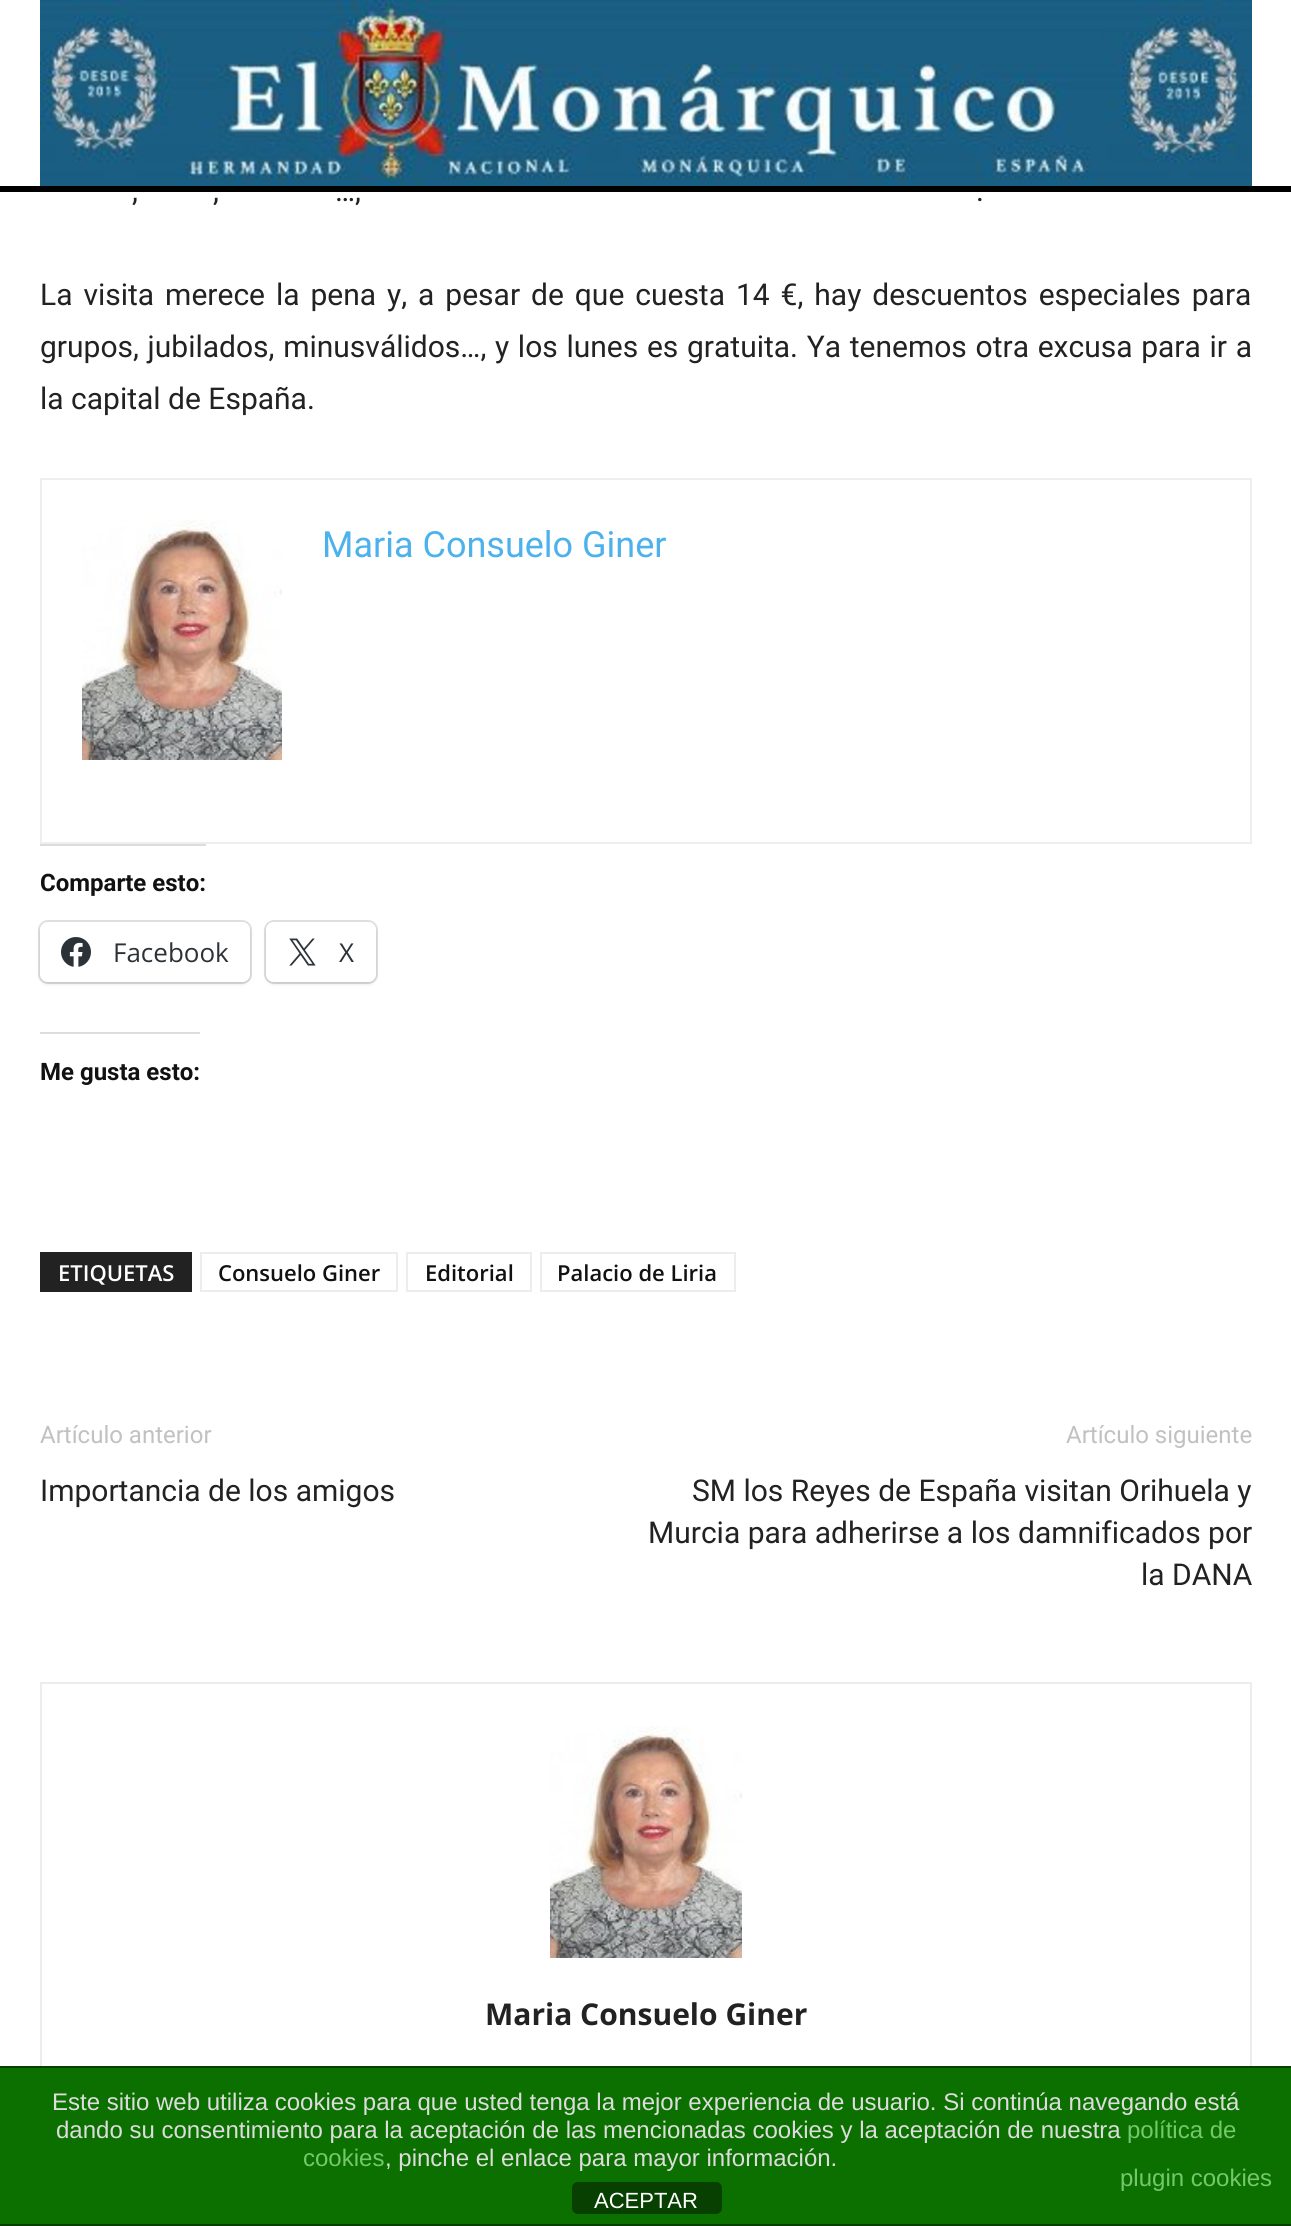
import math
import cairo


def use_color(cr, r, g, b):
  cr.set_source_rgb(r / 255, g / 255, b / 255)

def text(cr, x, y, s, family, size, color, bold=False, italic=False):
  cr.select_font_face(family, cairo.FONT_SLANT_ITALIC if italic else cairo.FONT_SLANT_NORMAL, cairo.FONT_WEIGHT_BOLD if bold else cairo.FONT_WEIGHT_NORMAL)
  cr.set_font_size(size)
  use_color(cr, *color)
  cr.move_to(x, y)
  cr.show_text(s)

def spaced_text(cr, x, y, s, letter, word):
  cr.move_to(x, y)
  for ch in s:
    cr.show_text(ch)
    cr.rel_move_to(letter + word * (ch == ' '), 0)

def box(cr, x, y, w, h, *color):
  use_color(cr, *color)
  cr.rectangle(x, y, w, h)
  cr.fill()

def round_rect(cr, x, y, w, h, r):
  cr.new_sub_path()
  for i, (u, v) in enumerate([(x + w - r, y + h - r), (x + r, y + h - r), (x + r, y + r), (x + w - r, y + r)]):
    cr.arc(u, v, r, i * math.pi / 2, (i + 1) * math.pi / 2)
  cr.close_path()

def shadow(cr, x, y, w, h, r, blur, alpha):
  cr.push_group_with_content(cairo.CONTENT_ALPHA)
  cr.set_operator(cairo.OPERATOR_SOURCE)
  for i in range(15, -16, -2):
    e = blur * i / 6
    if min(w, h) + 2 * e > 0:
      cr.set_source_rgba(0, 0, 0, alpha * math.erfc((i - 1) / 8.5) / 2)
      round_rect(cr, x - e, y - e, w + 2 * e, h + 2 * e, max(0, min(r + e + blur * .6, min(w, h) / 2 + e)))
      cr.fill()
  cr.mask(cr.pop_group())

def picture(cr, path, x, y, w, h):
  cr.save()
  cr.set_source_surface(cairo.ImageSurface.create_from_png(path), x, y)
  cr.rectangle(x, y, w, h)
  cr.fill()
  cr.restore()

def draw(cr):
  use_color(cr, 255, 255, 255)
  cr.paint()
  box(cr, 0, 186, 1291, 6, 0, 0, 0)
  picture(cr, "img_01.png", 40, 0, 1212, 186)
  cr.rectangle(41, 479, 1210, 364)
  use_color(cr, 238, 238, 238)
  cr.stroke()
  picture(cr, "img_02.png", 82, 520, 200, 240)
  box(cr, 40, 844, 166, 2, 220, 220, 222)
  round_rect(cr, 39, 921, 212, 62, 9)
  use_color(cr, 224, 224, 224)
  cr.stroke()
  use_color(cr, 0, 0, 0)
  shadow(cr, 40, 924, 210, 60, 8, 2, 0.12)
  use_color(cr, 255, 255, 255)
  round_rect(cr, 40, 922, 210, 60, 8)
  cr.fill()
  picture(cr, "img_03.png", 61, 937, 30, 30)
  round_rect(cr, 265, 921, 112, 62, 9)
  use_color(cr, 224, 224, 224)
  cr.stroke()
  use_color(cr, 0, 0, 0)
  shadow(cr, 266, 924, 110, 60, 8, 2, 0.12)
  use_color(cr, 255, 255, 255)
  round_rect(cr, 266, 922, 110, 60, 8)
  cr.fill()
  picture(cr, "img_04.png", 289, 938, 27, 28)
  box(cr, 40, 1032, 160, 2, 220, 220, 222)
  box(cr, 40, 1252, 152, 40, 34, 34, 34)
  cr.rectangle(201, 1253, 196, 38)
  use_color(cr, 237, 237, 237)
  cr.stroke()
  cr.rectangle(407, 1253, 124, 38)
  cr.stroke()
  cr.rectangle(541, 1253, 194, 38)
  cr.stroke()
  cr.rectangle(41, 1683, 1210, 402)
  cr.stroke()
  picture(cr, "img_05.png", 550, 1726, 192, 232)
  box(cr, 0, 2068, 1291, 156, 11, 112, 0)
  box(cr, 0, 2066, 1291, 2, 6, 64, 0)
  box(cr, 0, 2224, 1291, 2, 6, 64, 0)
  use_color(cr, 7, 64, 0)
  round_rect(cr, 572, 2182, 150, 32, 6)
  cr.fill()
  text(cr, 132, 201, ",", "Roboto", 30, (34, 34, 34))
  text(cr, 213, 201, ",", "Roboto", 30, (34, 34, 34))
  text(cr, 335, 201, "…,", "Roboto", 30, (34, 34, 34))
  text(cr, 976, 201, ".", "Roboto", 30, (34, 34, 34))
  spaced_text(cr, 40, 305, "La visita merece la pena y, a pesar de que cuesta 14 €, hay descuentos especiales para", 0, 3.5)
  spaced_text(cr, 40, 357, "grupos, jubilados, minusválidos…, y los lunes es gratuita. Ya tenemos otra excusa para ir a", 0, 1.25)
  text(cr, 40, 409, "la capital de España.", "Roboto", 30, (34, 34, 34))
  text(cr, 322, 557, "Maria Consuelo Giner", "Roboto", 36, (77, 178, 236))
  text(cr, 40, 891, "Comparte esto:", "Roboto", 24, (17, 17, 17), bold=True)
  text(cr, 113, 962, "Facebook", "Open Sans", 26, (44, 51, 56))
  text(cr, 339, 962, "X", "Open Sans", 26, (44, 51, 56))
  text(cr, 40, 1080, "Me gusta esto:", "Roboto", 24, (17, 17, 17), bold=True)
  text(cr, 58, 1281, "ETIQUETAS", "Open Sans SemiBold", 22, (255, 255, 255))
  text(cr, 218, 1281, "Consuelo Giner", "Open Sans SemiBold", 22, (17, 17, 17))
  text(cr, 425, 1281, "Editorial", "Open Sans SemiBold", 22, (17, 17, 17))
  text(cr, 557, 1281, "Palacio de Liria", "Open Sans SemiBold", 22, (17, 17, 17))
  text(cr, 40, 1443, "Artículo anterior", "Roboto", 24, (193, 193, 193))
  text(cr, 40, 1501, "Importancia de los amigos", "Roboto", 30, (34, 34, 34))
  text(cr, 1066, 1443, "Artículo siguiente", "Roboto", 24, (193, 193, 193))
  text(cr, 692, 1501, "SM los Reyes de España visitan Orihuela y", "Roboto", 30, (34, 34, 34))
  text(cr, 648, 1543, "Murcia para adherirse a los damnificados por", "Roboto", 30, (34, 34, 34))
  text(cr, 1141, 1585, "la DANA", "Roboto", 30, (34, 34, 34))
  text(cr, 485, 2025, "Maria Consuelo Giner", "Open Sans", 30, (34, 34, 34), bold=True)
  text(cr, 52, 2110, "Este sitio web utiliza cookies para que usted tenga la mejor experiencia de usuario. Si continúa navegando está", "Liberation Sans", 24, (221, 221, 221))
  text(cr, 56, 2138, "dando su consentimiento para la aceptación de las mencionadas cookies y la aceptación de nuestra", "Liberation Sans", 24, (221, 221, 221))
  text(cr, 1127, 2138, "política de", "Liberation Sans", 24, (117, 199, 108))
  text(cr, 303, 2166, "cookies", "Liberation Sans", 24, (117, 199, 108))
  text(cr, 385, 2166, ", pinche el enlace para mayor información.", "Liberation Sans", 24, (221, 221, 221))
  text(cr, 1120, 2186, "plugin cookies", "Liberation Sans", 24, (117, 199, 108))
  text(cr, 594, 2208, "ACEPTAR", "Liberation Sans", 22, (255, 255, 255))


surface = cairo.ImageSurface(cairo.FORMAT_RGB24, 1291, 2226)
cr = cairo.Context(surface)
options = cairo.FontOptions()
options.set_hint_metrics(cairo.HINT_METRICS_OFF)
options.set_hint_style(cairo.HINT_STYLE_NONE)
cr.set_font_options(options)
cr.set_miter_limit(4)
draw(cr)
surface.write_to_png("out.png")
